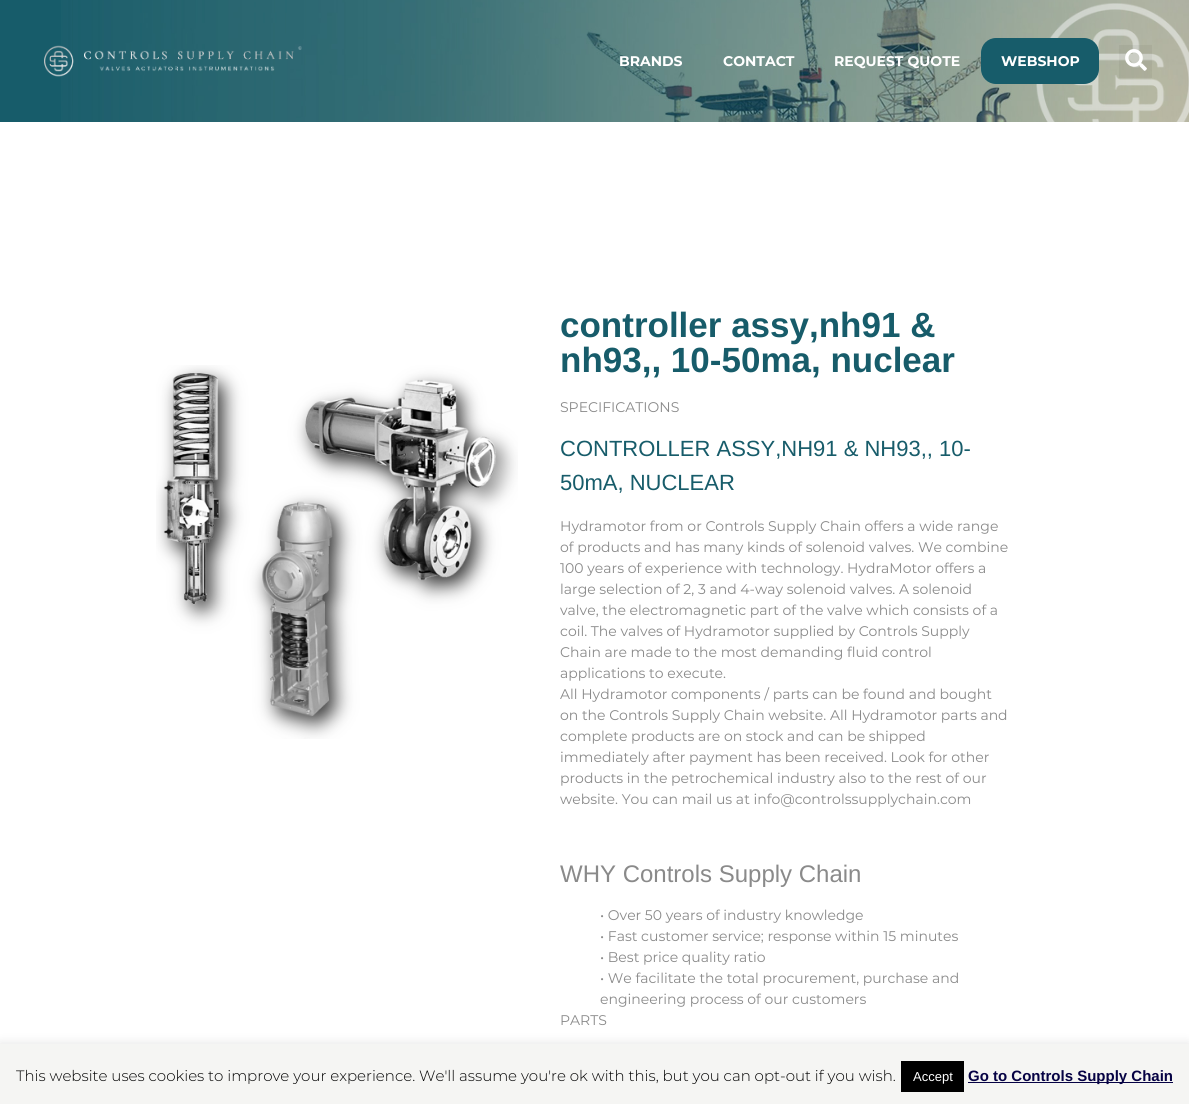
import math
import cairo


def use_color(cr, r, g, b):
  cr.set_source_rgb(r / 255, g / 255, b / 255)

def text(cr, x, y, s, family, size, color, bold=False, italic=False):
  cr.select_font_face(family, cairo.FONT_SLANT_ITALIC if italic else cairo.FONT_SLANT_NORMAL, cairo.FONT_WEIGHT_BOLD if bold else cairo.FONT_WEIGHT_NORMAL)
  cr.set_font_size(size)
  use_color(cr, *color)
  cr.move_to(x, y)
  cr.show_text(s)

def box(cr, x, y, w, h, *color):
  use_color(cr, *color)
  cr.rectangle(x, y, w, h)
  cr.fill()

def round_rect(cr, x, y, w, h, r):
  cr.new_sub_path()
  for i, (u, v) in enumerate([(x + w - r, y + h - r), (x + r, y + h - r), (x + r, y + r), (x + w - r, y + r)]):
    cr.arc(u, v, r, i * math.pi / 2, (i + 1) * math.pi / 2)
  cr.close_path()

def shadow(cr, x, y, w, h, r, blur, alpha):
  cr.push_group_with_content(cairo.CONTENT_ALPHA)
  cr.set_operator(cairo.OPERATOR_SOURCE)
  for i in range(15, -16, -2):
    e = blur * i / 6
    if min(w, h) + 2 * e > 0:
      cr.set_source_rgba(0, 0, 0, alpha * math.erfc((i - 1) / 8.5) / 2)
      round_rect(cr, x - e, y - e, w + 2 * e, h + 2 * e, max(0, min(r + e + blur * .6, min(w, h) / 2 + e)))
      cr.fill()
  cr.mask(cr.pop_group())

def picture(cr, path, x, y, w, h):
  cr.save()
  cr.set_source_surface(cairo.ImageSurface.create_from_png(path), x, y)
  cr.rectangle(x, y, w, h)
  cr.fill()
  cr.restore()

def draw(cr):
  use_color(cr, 255, 255, 255)
  cr.paint()
  box(cr, 0, 0, 61, 122, 23, 92, 106)
  picture(cr, "img_01.png", 61, 0, 1128, 122)
  picture(cr, "img_02.png", 44, 45, 258, 32)
  picture(cr, "img_04.png", 1036, 3, 153, 119)
  round_rect(cr, 981, 38, 118, 46, 15)
  cr.fill()
  cr.set_source_rgba(0, 0, 0, 0.05)
  cr.rectangle(1119, 45, 33, 33)
  cr.fill()
  picture(cr, "img_03.png", 1125, 49, 22, 22)
  picture(cr, "img_05.png", 156, 365, 362, 374)
  use_color(cr, 172, 171, 171)
  shadow(cr, 0, 1043, 1189, 60, 0, 5, 0.3)
  box(cr, 0, 1044, 1189, 60, 245, 245, 243)
  box(cr, 901, 1061, 63, 31, 0, 0, 0)
  box(cr, 968, 1082, 205, 1, 6, 2, 68)
  text(cr, 619, 66, "BRANDS", "Montserrat", 14, (255, 255, 255), bold=True)
  text(cr, 723, 66, "CONTACT", "Montserrat", 14, (255, 255, 255), bold=True)
  text(cr, 834, 66, "REQUEST QUOTE", "Montserrat", 14, (255, 255, 255), bold=True)
  text(cr, 1001, 66, "WEBSHOP", "Montserrat", 14, (255, 255, 255), bold=True)
  text(cr, 560, 337, "controller assy,nh91 &", "Liberation Sans", 35, (23, 92, 106), bold=True)
  text(cr, 560, 372, "nh93,, 10-50ma, nuclear", "Liberation Sans", 35, (23, 92, 106), bold=True)
  text(cr, 560, 412, "SPECIFICATIONS", "Montserrat", 14, (138, 138, 138))
  text(cr, 560, 456, "CONTROLLER ASSY,NH91 & NH93,, 10-", "Liberation Sans", 22, (23, 92, 106))
  text(cr, 560, 490, "50mA, NUCLEAR", "Liberation Sans", 22, (23, 92, 106))
  text(cr, 560, 531, "Hydramotor from or Controls Supply Chain offers a wide range", "Montserrat", 14, (138, 138, 138))
  text(cr, 560, 552, "of products and has many kinds of solenoid valves. We combine", "Montserrat", 14, (138, 138, 138))
  text(cr, 560, 573, "100 years of experience with technology. HydraMotor offers a", "Montserrat", 14, (138, 138, 138))
  text(cr, 560, 594, "large selection of 2, 3 and 4-way solenoid valves. A solenoid", "Montserrat", 14, (138, 138, 138))
  text(cr, 560, 615, "valve, the electromagnetic part of the valve which consists of a", "Montserrat", 14, (138, 138, 138))
  text(cr, 560, 636, "coil. The valves of Hydramotor supplied by Controls Supply", "Montserrat", 14, (138, 138, 138))
  text(cr, 560, 657, "Chain are made to the most demanding fluid control", "Montserrat", 14, (138, 138, 138))
  text(cr, 560, 678, "applications to execute.", "Montserrat", 14, (138, 138, 138))
  text(cr, 560, 699, "All Hydramotor components / parts can be found and bought", "Montserrat", 14, (138, 138, 138))
  text(cr, 560, 720, "on the Controls Supply Chain website. All Hydramotor parts and", "Montserrat", 14, (138, 138, 138))
  text(cr, 560, 741, "complete products are on stock and can be shipped", "Montserrat", 14, (138, 138, 138))
  text(cr, 560, 762, "immediately after payment has been received. Look for other", "Montserrat", 14, (138, 138, 138))
  text(cr, 560, 783, "products in the petrochemical industry also to the rest of our", "Montserrat", 14, (138, 138, 138))
  text(cr, 560, 804, "website. You can mail us at info@controlssupplychain.com", "Montserrat", 14, (138, 138, 138))
  text(cr, 560, 882, "WHY Controls Supply Chain", "Liberation Sans", 24, (138, 138, 138))
  text(cr, 600, 920, "• Over 50 years of industry knowledge", "Montserrat", 14, (138, 138, 138))
  text(cr, 600, 941, "• Fast customer service; response within 15 minutes", "Montserrat", 14, (138, 138, 138))
  text(cr, 600, 962, "• Best price quality ratio", "Montserrat", 14, (138, 138, 138))
  text(cr, 600, 983, "• We facilitate the total procurement, purchase and", "Montserrat", 14, (138, 138, 138))
  text(cr, 600, 1004, "engineering process of our customers", "Montserrat", 14, (138, 138, 138))
  text(cr, 560, 1025, "PARTS", "Montserrat", 14, (138, 138, 138))
  text(cr, 16, 1081, "This website uses cookies to improve your experience. We'll assume you're ok with this, but you can opt-out if you wish.", "Montserrat Light", 15, (0, 0, 0))
  text(cr, 913, 1081, "Accept", "Liberation Sans", 13, (255, 255, 255))
  text(cr, 968, 1081, "Go to Controls Supply Chain", "Liberation Sans", 15, (6, 2, 68), bold=True)


surface = cairo.ImageSurface(cairo.FORMAT_RGB24, 1189, 1104)
cr = cairo.Context(surface)
options = cairo.FontOptions()
options.set_hint_metrics(cairo.HINT_METRICS_OFF)
options.set_hint_style(cairo.HINT_STYLE_NONE)
cr.set_font_options(options)
cr.set_miter_limit(4)
draw(cr)
surface.write_to_png("out.png")
